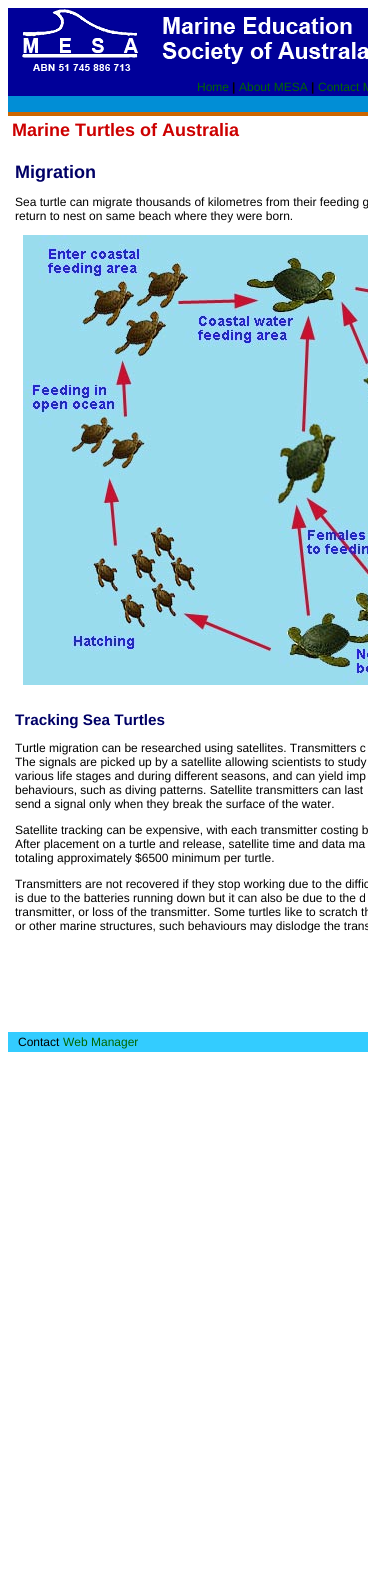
import math
import cairo


def use_color(cr, r, g, b):
  cr.set_source_rgb(r / 255, g / 255, b / 255)

def text(cr, x, y, s, family, size, color, bold=False, italic=False):
  cr.select_font_face(family, cairo.FONT_SLANT_ITALIC if italic else cairo.FONT_SLANT_NORMAL, cairo.FONT_WEIGHT_BOLD if bold else cairo.FONT_WEIGHT_NORMAL)
  cr.set_font_size(size)
  use_color(cr, *color)
  cr.move_to(x, y)
  cr.show_text(s)

def box(cr, x, y, w, h, *color):
  use_color(cr, *color)
  cr.rectangle(x, y, w, h)
  cr.fill()

def picture(cr, path, x, y, w, h):
  cr.save()
  cr.set_source_surface(cairo.ImageSurface.create_from_png(path), x, y)
  cr.rectangle(x, y, w, h)
  cr.fill()
  cr.restore()

def draw(cr):
  use_color(cr, 255, 255, 255)
  cr.paint()
  box(cr, 8, 8, 360, 88, 0, 0, 153)
  picture(cr, "img_01.png", 21, 9, 347, 62)
  box(cr, 8, 112, 360, 4, 204, 102, 0)
  box(cr, 8, 96, 360, 16, 1, 142, 214)
  picture(cr, "img_02.png", 23, 235, 345, 450)
  box(cr, 8, 1032, 360, 20, 51, 204, 255)
  text(cr, 197, 91, "Home", "Liberation Sans", 12, (0, 102, 0))
  text(cr, 232, 91, "|", "Liberation Sans", 12, (0, 0, 0), bold=True)
  text(cr, 239, 91, "About MESA", "Liberation Sans", 12, (0, 102, 0))
  text(cr, 311, 91, "|", "Liberation Sans", 12, (0, 0, 0), bold=True)
  text(cr, 318, 91, "Contact M", "Liberation Sans", 12, (0, 102, 0))
  text(cr, 12, 136, "Marine Turtles of Australia", "Liberation Sans", 18, (204, 0, 0), bold=True)
  text(cr, 15, 178, "Migration", "Liberation Sans", 18, (0, 0, 102), bold=True)
  text(cr, 15, 206, "Sea turtle can migrate thousands of kilometres from their feeding g", "Liberation Sans", 12, (0, 0, 0))
  text(cr, 15, 220, "return to nest on same beach where they were born.", "Liberation Sans", 12, (0, 0, 0))
  text(cr, 15, 725, "Tracking Sea Turtles", "Liberation Sans", 15.25, (0, 0, 102), bold=True)
  text(cr, 15, 752, "Turtle migration can be researched using satellites. Transmitters c", "Liberation Sans", 12, (0, 0, 0))
  text(cr, 15, 766, "The signals are picked up by a satellite allowing scientists to study", "Liberation Sans", 12, (0, 0, 0))
  text(cr, 15, 780, "various life stages and during different seasons, and can yield imp", "Liberation Sans", 12, (0, 0, 0))
  text(cr, 15, 794, "behaviours, such as diving patterns. Satellite transmitters can last", "Liberation Sans", 12, (0, 0, 0))
  text(cr, 15, 808, "send a signal only when they break the surface of the water.", "Liberation Sans", 12, (0, 0, 0))
  text(cr, 15, 834, "Satellite tracking can be expensive, with each transmitter costing b", "Liberation Sans", 12, (0, 0, 0))
  text(cr, 15, 848, "After placement on a turtle and release, satellite time and data ma", "Liberation Sans", 12, (0, 0, 0))
  text(cr, 15, 862, "totaling approximately $6500 minimum per turtle.", "Liberation Sans", 12, (0, 0, 0))
  text(cr, 15, 888, "Transmitters are not recovered if they stop working due to the diffic", "Liberation Sans", 12, (0, 0, 0))
  text(cr, 15, 902, "is due to the batteries running down but it can also be due to the d", "Liberation Sans", 12, (0, 0, 0))
  text(cr, 15, 916, "transmitter, or loss of the transmitter. Some turtles like to scratch th", "Liberation Sans", 12, (0, 0, 0))
  text(cr, 15, 930, "or other marine structures, such behaviours may dislodge the trans", "Liberation Sans", 12, (0, 0, 0))
  text(cr, 18, 1046, "Contact", "Liberation Sans", 12, (0, 0, 0))
  text(cr, 63, 1046, "Web Manager", "Liberation Sans", 12, (0, 102, 0))


surface = cairo.ImageSurface(cairo.FORMAT_RGB24, 368, 1575)
cr = cairo.Context(surface)
options = cairo.FontOptions()
options.set_hint_metrics(cairo.HINT_METRICS_OFF)
options.set_hint_style(cairo.HINT_STYLE_NONE)
cr.set_font_options(options)
cr.set_miter_limit(4)
draw(cr)
surface.write_to_png("out.png")
